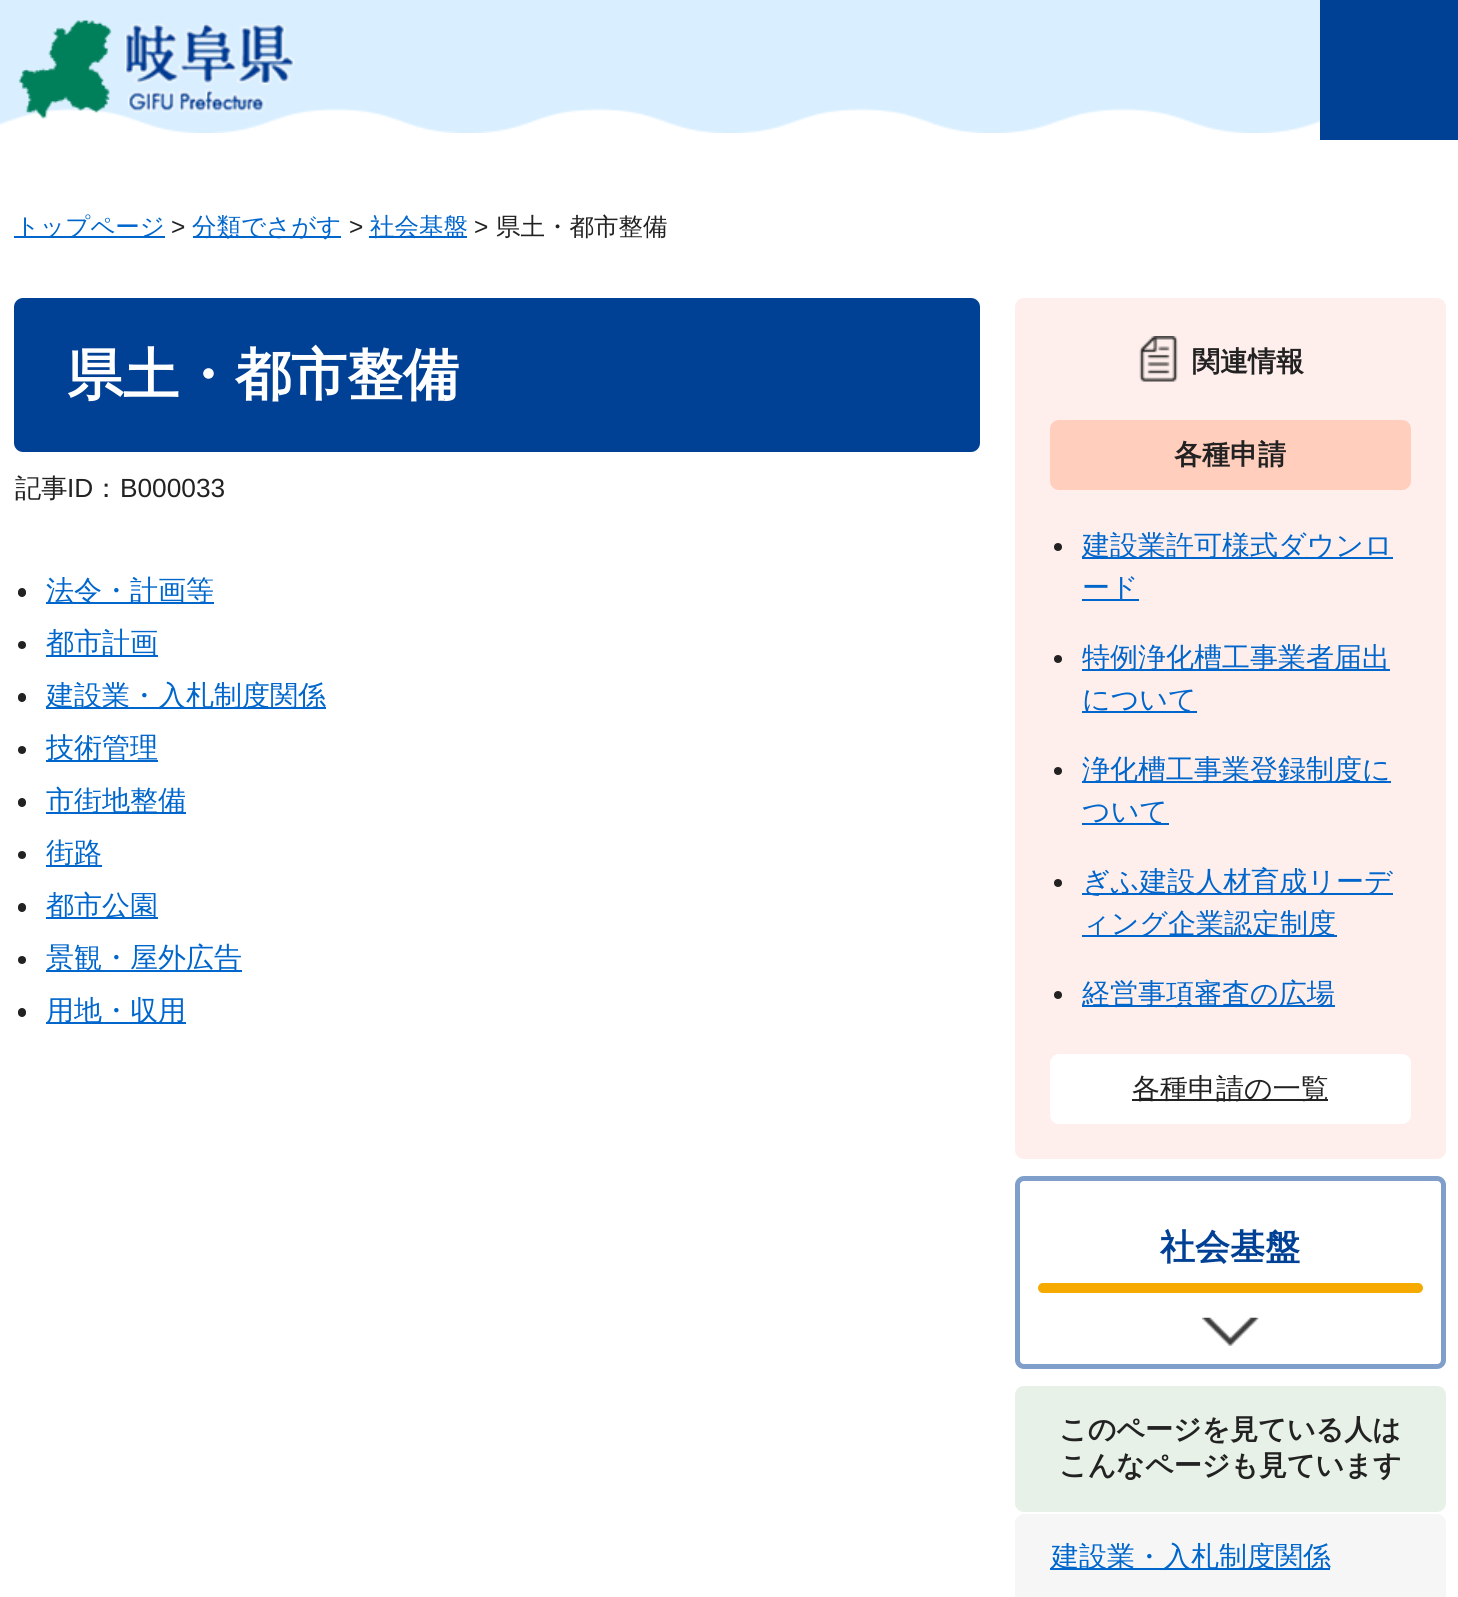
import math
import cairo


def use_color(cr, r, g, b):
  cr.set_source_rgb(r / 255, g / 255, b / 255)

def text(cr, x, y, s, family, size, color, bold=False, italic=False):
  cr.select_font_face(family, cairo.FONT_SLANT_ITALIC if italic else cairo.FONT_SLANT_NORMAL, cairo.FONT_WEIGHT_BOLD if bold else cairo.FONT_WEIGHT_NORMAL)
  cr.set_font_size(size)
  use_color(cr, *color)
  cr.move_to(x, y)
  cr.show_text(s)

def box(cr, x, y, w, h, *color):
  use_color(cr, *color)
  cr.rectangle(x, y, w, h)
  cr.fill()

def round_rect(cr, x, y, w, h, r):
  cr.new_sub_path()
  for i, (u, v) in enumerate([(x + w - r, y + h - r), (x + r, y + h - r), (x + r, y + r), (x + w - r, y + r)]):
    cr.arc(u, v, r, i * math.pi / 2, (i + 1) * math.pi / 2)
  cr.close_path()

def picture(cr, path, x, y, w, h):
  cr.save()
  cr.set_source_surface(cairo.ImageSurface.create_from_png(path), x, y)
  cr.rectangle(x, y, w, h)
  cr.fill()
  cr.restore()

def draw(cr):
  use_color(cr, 255, 255, 255)
  cr.paint()
  picture(cr, "img_01.png", 0, 0, 1320, 133)
  picture(cr, "img_02.png", 18, 19, 277, 100)
  box(cr, 1320, 0, 138, 140, 0, 64, 149)
  box(cr, 14, 236, 151, 2, 0, 102, 204)
  box(cr, 193, 236, 148, 2, 0, 102, 204)
  box(cr, 369, 236, 98, 2, 0, 102, 204)
  use_color(cr, 0, 64, 149)
  round_rect(cr, 14, 298, 966, 154, 9)
  cr.fill()
  use_color(cr, 34, 34, 34)
  round_rect(cr, 18, 588, 8, 9, 4)
  cr.fill()
  box(cr, 46, 602, 168, 2, 0, 102, 204)
  use_color(cr, 34, 34, 34)
  cr.arc(22, 645, 4, 0, 2 * math.pi)
  cr.fill()
  box(cr, 46, 655, 112, 2, 0, 102, 204)
  use_color(cr, 34, 34, 34)
  round_rect(cr, 18, 693, 8, 9, 4)
  cr.fill()
  box(cr, 46, 707, 280, 2, 0, 102, 204)
  use_color(cr, 34, 34, 34)
  cr.arc(22, 750, 4, 0, 2 * math.pi)
  cr.fill()
  box(cr, 46, 760, 112, 2, 0, 102, 204)
  use_color(cr, 34, 34, 34)
  round_rect(cr, 18, 798, 8, 9, 4)
  cr.fill()
  box(cr, 46, 812, 140, 2, 0, 102, 204)
  use_color(cr, 34, 34, 34)
  cr.arc(22, 855, 4, 0, 2 * math.pi)
  cr.fill()
  box(cr, 46, 865, 56, 2, 0, 102, 204)
  use_color(cr, 34, 34, 34)
  round_rect(cr, 18, 903, 8, 9, 4)
  cr.fill()
  box(cr, 46, 917, 112, 2, 0, 102, 204)
  use_color(cr, 34, 34, 34)
  cr.arc(22, 960, 4, 0, 2 * math.pi)
  cr.fill()
  box(cr, 46, 970, 196, 2, 0, 102, 204)
  use_color(cr, 34, 34, 34)
  round_rect(cr, 18, 1008, 8, 9, 4)
  cr.fill()
  box(cr, 46, 1022, 140, 2, 0, 102, 204)
  use_color(cr, 255, 239, 236)
  round_rect(cr, 1015, 298, 431, 861, 9)
  cr.fill()
  picture(cr, "img_03.png", 1139, 336, 39, 46)
  use_color(cr, 255, 206, 189)
  round_rect(cr, 1050, 420, 361, 70, 9)
  cr.fill()
  use_color(cr, 34, 34, 34)
  cr.arc(1058, 547, 4, 0, 2 * math.pi)
  cr.fill()
  box(cr, 1082, 557, 311, 2, 0, 102, 204)
  box(cr, 1082, 599, 57, 2, 0, 102, 204)
  use_color(cr, 34, 34, 34)
  cr.arc(1058, 659, 4, 0, 2 * math.pi)
  cr.fill()
  box(cr, 1082, 669, 308, 2, 0, 102, 204)
  box(cr, 1082, 711, 115, 2, 0, 102, 204)
  use_color(cr, 34, 34, 34)
  cr.arc(1058, 771, 4, 0, 2 * math.pi)
  cr.fill()
  box(cr, 1082, 781, 309, 2, 0, 102, 204)
  box(cr, 1082, 823, 87, 2, 0, 102, 204)
  use_color(cr, 34, 34, 34)
  cr.arc(1058, 883, 4, 0, 2 * math.pi)
  cr.fill()
  box(cr, 1082, 893, 311, 2, 0, 102, 204)
  box(cr, 1082, 935, 255, 2, 0, 102, 204)
  use_color(cr, 34, 34, 34)
  cr.arc(1058, 995, 4, 0, 2 * math.pi)
  cr.fill()
  box(cr, 1082, 1005, 253, 2, 0, 102, 204)
  use_color(cr, 255, 255, 255)
  round_rect(cr, 1050, 1054, 361, 70, 9)
  cr.fill()
  box(cr, 1132, 1099, 196, 2, 34, 34, 34)
  round_rect(cr, 1017.5, 1178.5, 426, 188, 6.5)
  use_color(cr, 127, 159, 202)
  cr.set_line_width(5)
  cr.stroke()
  picture(cr, "img_04.png", 1202, 1317, 57, 29)
  use_color(cr, 246, 170, 0)
  round_rect(cr, 1038, 1283, 385, 10, 5)
  cr.fill()
  use_color(cr, 231, 241, 231)
  round_rect(cr, 1015, 1386, 431, 126, 9)
  cr.fill()
  use_color(cr, 246, 246, 246)
  round_rect(cr, 1015, 1514, 431, 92, 9)
  cr.fill()
  box(cr, 1050, 1568, 280, 2, 0, 102, 204)
  text(cr, 15, 235, "トップページ", "WenQuanYi Zen Hei Medium", 24.5, (0, 102, 204))
  text(cr, 171, 235, ">", "Liberation Sans", 24.5, (34, 34, 34))
  text(cr, 192, 235, "分類でさがす", "WenQuanYi Zen Hei Medium", 24.5, (0, 102, 204))
  text(cr, 349, 235, ">", "Liberation Sans", 24.5, (34, 34, 34))
  text(cr, 370, 235, "社会基盤", "WenQuanYi Zen Hei Medium", 24.5, (0, 102, 204))
  text(cr, 474, 235, ">", "Liberation Sans", 24.5, (34, 34, 34))
  text(cr, 496, 235, "県土・都市整備", "WenQuanYi Zen Hei Medium", 24.5, (34, 34, 34))
  text(cr, 67, 394, "県土・都市整備", "WenQuanYi Zen Hei", 56, (255, 255, 255), bold=True)
  text(cr, 15, 497, "記事", "WenQuanYi Zen Hei Medium", 26.25, (34, 34, 34))
  text(cr, 67, 497, "ID", "Liberation Sans", 26.25, (34, 34, 34))
  text(cr, 93, 497, "：", "WenQuanYi Zen Hei Medium", 26.25, (34, 34, 34))
  text(cr, 120, 497, "B000033", "Liberation Sans", 26.25, (34, 34, 34))
  text(cr, 46, 600, "法令・計画等", "WenQuanYi Zen Hei Medium", 28, (0, 102, 204))
  text(cr, 46, 652, "都市計画", "WenQuanYi Zen Hei Medium", 28, (0, 102, 204))
  text(cr, 46, 705, "建設業・入札制度関係", "WenQuanYi Zen Hei Medium", 28, (0, 102, 204))
  text(cr, 46, 757, "技術管理", "WenQuanYi Zen Hei Medium", 28, (0, 102, 204))
  text(cr, 46, 810, "市街地整備", "WenQuanYi Zen Hei Medium", 28, (0, 102, 204))
  text(cr, 46, 862, "街路", "WenQuanYi Zen Hei Medium", 28, (0, 102, 204))
  text(cr, 46, 915, "都市公園", "WenQuanYi Zen Hei Medium", 28, (0, 102, 204))
  text(cr, 46, 967, "景観・屋外広告", "WenQuanYi Zen Hei Medium", 28, (0, 102, 204))
  text(cr, 46, 1020, "用地・収用", "WenQuanYi Zen Hei Medium", 28, (0, 102, 204))
  text(cr, 1192, 371, "関連情報", "WenQuanYi Zen Hei", 28, (34, 34, 34), bold=True)
  text(cr, 1174, 464, "各種申請", "WenQuanYi Zen Hei", 28, (34, 34, 34), bold=True)
  text(cr, 1082, 555, "建設業許可様式ダウンロ", "WenQuanYi Zen Hei Medium", 28, (0, 102, 204))
  text(cr, 1082, 597, "ード", "WenQuanYi Zen Hei Medium", 28, (0, 102, 204))
  text(cr, 1082, 667, "特例浄化槽工事業者届出", "WenQuanYi Zen Hei Medium", 28, (0, 102, 204))
  text(cr, 1082, 709, "について", "WenQuanYi Zen Hei Medium", 28, (0, 102, 204))
  text(cr, 1082, 779, "浄化槽工事業登録制度に", "WenQuanYi Zen Hei Medium", 28, (0, 102, 204))
  text(cr, 1082, 821, "ついて", "WenQuanYi Zen Hei Medium", 28, (0, 102, 204))
  text(cr, 1082, 891, "ぎふ建設人材育成リーデ", "WenQuanYi Zen Hei Medium", 28, (0, 102, 204))
  text(cr, 1082, 933, "ィング企業認定制度", "WenQuanYi Zen Hei Medium", 28, (0, 102, 204))
  text(cr, 1082, 1003, "経営事項審査の広場", "WenQuanYi Zen Hei Medium", 28, (0, 102, 204))
  text(cr, 1132, 1098, "各種申請の一覧", "WenQuanYi Zen Hei Medium", 28, (34, 34, 34))
  text(cr, 1160, 1259, "社会基盤", "WenQuanYi Zen Hei", 35, (0, 64, 149), bold=True)
  text(cr, 1059, 1439, "このページを見ている人は", "WenQuanYi Zen Hei", 28, (34, 34, 34), bold=True)
  text(cr, 1059, 1475, "こんなページも見ています", "WenQuanYi Zen Hei", 28, (34, 34, 34), bold=True)
  text(cr, 1051, 1566, "建設業・入札制度関係", "WenQuanYi Zen Hei Medium", 28, (0, 102, 204))


surface = cairo.ImageSurface(cairo.FORMAT_RGB24, 1458, 1597)
cr = cairo.Context(surface)
options = cairo.FontOptions()
options.set_hint_metrics(cairo.HINT_METRICS_OFF)
options.set_hint_style(cairo.HINT_STYLE_NONE)
cr.set_font_options(options)
cr.set_miter_limit(4)
draw(cr)
surface.write_to_png("out.png")
